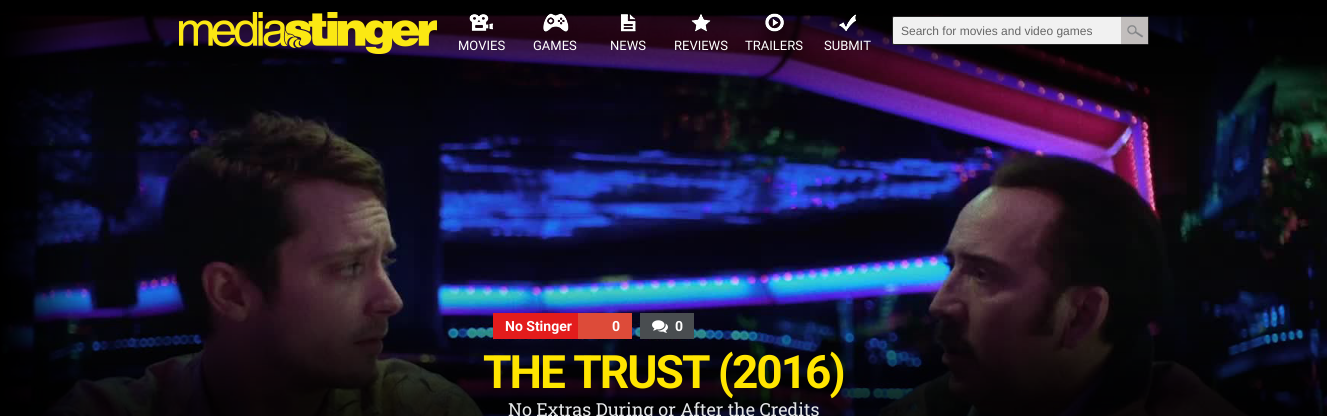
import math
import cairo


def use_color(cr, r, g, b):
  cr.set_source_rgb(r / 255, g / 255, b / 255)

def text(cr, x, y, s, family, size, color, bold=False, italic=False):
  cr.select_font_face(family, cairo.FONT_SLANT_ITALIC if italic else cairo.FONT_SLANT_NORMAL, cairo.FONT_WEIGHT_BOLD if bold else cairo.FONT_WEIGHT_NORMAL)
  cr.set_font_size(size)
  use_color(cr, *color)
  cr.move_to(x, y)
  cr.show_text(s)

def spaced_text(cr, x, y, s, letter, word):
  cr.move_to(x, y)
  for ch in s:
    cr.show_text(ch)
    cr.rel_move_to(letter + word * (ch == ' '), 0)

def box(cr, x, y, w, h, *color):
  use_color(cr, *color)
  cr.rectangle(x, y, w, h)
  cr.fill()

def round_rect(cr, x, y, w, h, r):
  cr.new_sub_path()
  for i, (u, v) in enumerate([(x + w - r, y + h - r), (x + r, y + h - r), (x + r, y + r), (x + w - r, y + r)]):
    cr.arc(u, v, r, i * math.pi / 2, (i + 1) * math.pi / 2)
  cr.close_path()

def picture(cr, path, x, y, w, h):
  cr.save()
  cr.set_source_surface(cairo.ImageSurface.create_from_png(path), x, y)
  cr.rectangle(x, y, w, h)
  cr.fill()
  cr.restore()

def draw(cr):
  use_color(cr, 0, 0, 0)
  cr.paint()
  picture(cr, "img_09.png", 0, 12, 1327, 404)
  picture(cr, "img_10.png", 0, 12, 1327, 129)
  picture(cr, "img_01.png", 179, 12, 258, 42)
  use_color(cr, 241, 241, 241)
  round_rect(cr, 892.5, 16.5, 256, 28, 1.5)
  cr.fill_preserve()
  use_color(cr, 34, 34, 34)
  cr.set_line_width(1)
  cr.stroke()
  picture(cr, "img_02.png", 1121, 17, 27, 27)
  picture(cr, "img_03.png", 469, 14, 24, 18)
  picture(cr, "img_04.png", 543, 13, 26, 19)
  picture(cr, "img_05.png", 620, 14, 16, 18)
  picture(cr, "img_06.png", 691, 14, 20, 18)
  picture(cr, "img_07.png", 765, 13, 19, 19)
  picture(cr, "img_08.png", 839, 14, 17, 18)
  picture(cr, "img_11.png", 0, 285, 1327, 131)
  picture(cr, "img_12.png", 0, 15, 93, 401)
  box(cr, 493, 313, 85, 26, 227, 28, 28)
  box(cr, 578, 313, 54, 26, 221, 75, 57)
  box(cr, 640, 313, 54, 26, 73, 77, 80)
  picture(cr, "img_13.png", 652, 320, 16, 13)
  text(cr, 901, 35, "Search for movies and video games", "Liberation Sans", 12, (102, 102, 102))
  text(cr, 458, 50, "MOVIES", "Roboto", 13, (255, 255, 255))
  text(cr, 533, 50, "GAMES", "Roboto", 13, (255, 255, 255))
  text(cr, 610, 50, "NEWS", "Roboto", 13, (255, 255, 255))
  text(cr, 674, 50, "REVIEWS", "Roboto", 13, (255, 255, 255))
  text(cr, 745, 50, "TRAILERS", "Roboto", 13, (255, 255, 255))
  text(cr, 824, 50, "SUBMIT", "Roboto", 13, (255, 255, 255))
  text(cr, 505, 331, "No Stinger", "Roboto", 14, (255, 255, 255), bold=True)
  text(cr, 612, 331, "0", "Roboto", 14, (255, 255, 255), bold=True)
  text(cr, 675, 331, "0", "Roboto", 14, (255, 255, 255), bold=True)
  cr.set_font_size(46)
  use_color(cr, 255, 229, 0)
  spaced_text(cr, 483, 388, "THE TRUST (2016)", -2, 0)
  text(cr, 508, 416, "No Extras During or After the Credits", "Roboto Slab", 18, (228, 230, 231))


surface = cairo.ImageSurface(cairo.FORMAT_RGB24, 1327, 416)
cr = cairo.Context(surface)
options = cairo.FontOptions()
options.set_hint_metrics(cairo.HINT_METRICS_OFF)
options.set_hint_style(cairo.HINT_STYLE_NONE)
cr.set_font_options(options)
cr.set_miter_limit(4)
draw(cr)
surface.write_to_png("out.png")
